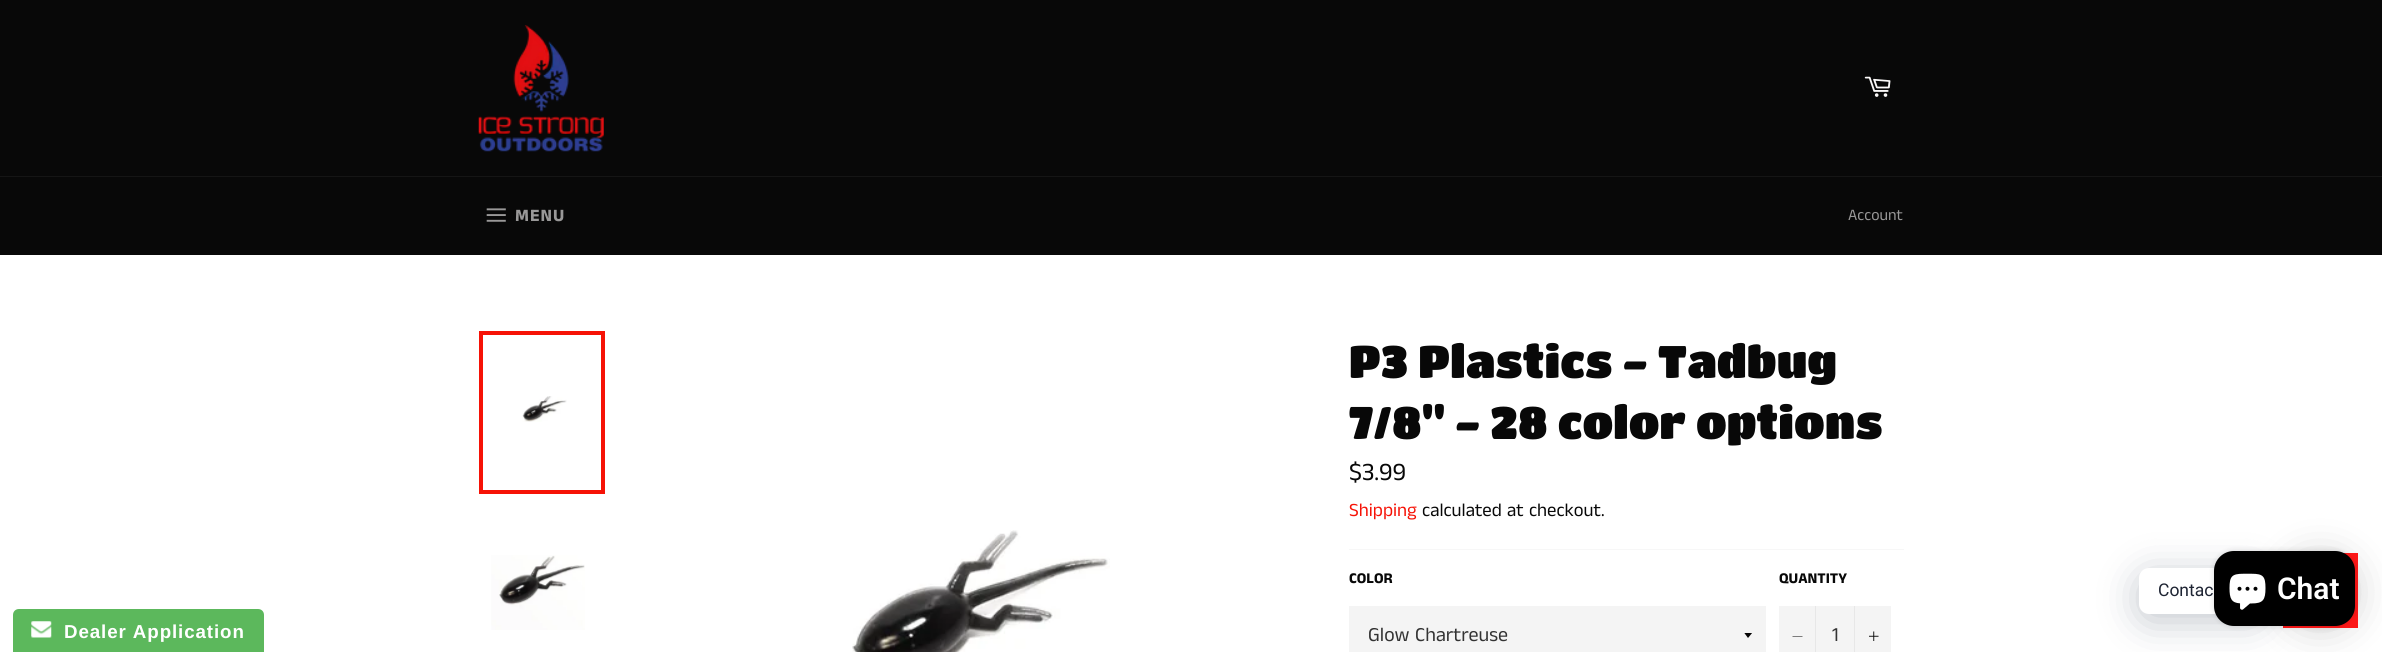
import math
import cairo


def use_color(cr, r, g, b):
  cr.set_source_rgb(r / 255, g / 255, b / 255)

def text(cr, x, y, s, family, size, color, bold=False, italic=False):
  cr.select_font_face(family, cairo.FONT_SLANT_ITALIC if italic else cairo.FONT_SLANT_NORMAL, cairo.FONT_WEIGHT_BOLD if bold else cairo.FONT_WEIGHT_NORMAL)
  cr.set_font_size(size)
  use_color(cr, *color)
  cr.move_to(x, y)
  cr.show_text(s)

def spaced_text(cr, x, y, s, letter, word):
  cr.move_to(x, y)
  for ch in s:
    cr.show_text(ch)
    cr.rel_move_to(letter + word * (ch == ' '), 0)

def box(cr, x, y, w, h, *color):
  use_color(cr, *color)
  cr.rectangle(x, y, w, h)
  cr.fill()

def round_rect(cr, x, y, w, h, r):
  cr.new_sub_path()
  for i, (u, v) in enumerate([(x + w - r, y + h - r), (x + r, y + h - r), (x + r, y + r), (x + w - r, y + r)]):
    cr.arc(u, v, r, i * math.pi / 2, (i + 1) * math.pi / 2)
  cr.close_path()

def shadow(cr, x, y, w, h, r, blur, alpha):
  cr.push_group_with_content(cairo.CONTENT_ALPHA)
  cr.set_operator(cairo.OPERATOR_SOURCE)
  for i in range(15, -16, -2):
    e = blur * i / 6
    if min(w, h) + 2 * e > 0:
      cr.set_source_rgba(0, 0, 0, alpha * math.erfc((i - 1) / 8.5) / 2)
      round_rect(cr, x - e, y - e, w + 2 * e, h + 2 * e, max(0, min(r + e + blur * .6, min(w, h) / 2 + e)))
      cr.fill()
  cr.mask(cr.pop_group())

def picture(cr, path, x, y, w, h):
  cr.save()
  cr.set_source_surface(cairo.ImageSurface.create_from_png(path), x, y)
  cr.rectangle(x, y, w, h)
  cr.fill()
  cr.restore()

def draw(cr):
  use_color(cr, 8, 8, 8)
  cr.paint()
  picture(cr, "img_01.png", 478, 25, 126, 127)
  picture(cr, "img_02.png", 1864, 76, 27, 21)
  box(cr, 0, 176, 2382, 1, 21, 21, 21)
  picture(cr, "img_03.png", 486, 208, 20, 14)
  box(cr, 0, 255, 2382, 397, 255, 255, 255)
  picture(cr, "img_04.png", 522, 396, 45, 26)
  cr.rectangle(481, 333, 122, 159)
  use_color(cr, 246, 18, 6)
  cr.set_line_width(4)
  cr.stroke()
  picture(cr, "img_05.png", 491, 555, 94, 75)
  picture(cr, "img_06.png", 852, 530, 258, 122)
  box(cr, 1349, 549, 555, 1, 247, 247, 247)
  box(cr, 1349, 606, 417, 46, 244, 244, 244)
  cr.save()
  cr.rectangle(1744, 633, 10, 6)
  cr.clip()
  use_color(cr, 6, 5, 5)
  cr.new_path()
  cr.move_to(1744, 632.5)
  cr.line_to(1748, 638)
  cr.line_to(1752.5, 632.5)
  cr.close_path()
  cr.fill()
  cr.restore()
  box(cr, 1779, 606, 112, 46, 244, 244, 244)
  box(cr, 1815, 606, 1, 46, 231, 231, 231)
  use_color(cr, 6, 5, 5)
  cr.set_fill_rule(cairo.FILL_RULE_EVEN_ODD)
  cr.new_path()
  cr.move_to(1802.5, 636)
  cr.line_to(1802.5, 636.5)
  cr.line_to(1792.5, 636.5)
  cr.line_to(1792.5, 636)
  cr.close_path()
  cr.fill()
  box(cr, 1854, 606, 1, 46, 231, 231, 231)
  picture(cr, "img_07.png", 1869, 631, 10, 10)
  use_color(cr, 0, 0, 0)
  shadow(cr, 2283, 555, 75, 75, 37.5, 20, 0.16)
  shadow(cr, 2283, 554, 75, 75, 37.5, 4, 0.06)
  box(cr, 2283, 553, 75, 75, 252, 22, 22)
  use_color(cr, 0, 18, 46)
  shadow(cr, 2139, 575, 124, 46, 10, 20, 0.24)
  use_color(cr, 255, 255, 255)
  round_rect(cr, 2139, 568, 124, 46, 10)
  cr.fill()
  use_color(cr, 0, 0, 0)
  shadow(cr, 2214, 551, 141, 75, 20, 3, 0.15)
  use_color(cr, 0, 0, 0)
  round_rect(cr, 2214, 551, 141, 75, 20)
  cr.fill()
  picture(cr, "img_08.png", 2229, 573, 37, 37)
  use_color(cr, 92, 184, 92)
  cr.new_path()
  cr.move_to(19, 609)
  cr.line_to(258, 609)
  cr.curve_to(261.5, 609, 264, 611.5, 264, 615)
  cr.line_to(264, 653)
  cr.line_to(13, 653)
  cr.line_to(13, 615)
  cr.curve_to(13, 611.5, 15.5, 609, 19, 609)
  cr.close_path()
  cr.fill()
  picture(cr, "img_09.png", 31, 621, 21, 17)
  cr.select_font_face("Anek Tamil", cairo.FONT_SLANT_NORMAL, cairo.FONT_WEIGHT_BOLD)
  cr.set_font_size(17.5)
  use_color(cr, 153, 152, 152)
  spaced_text(cr, 515, 221, "MENU", 1, 0)
  text(cr, 1848, 220, "Account", "Anek Tamil", 16, (153, 152, 152))
  text(cr, 1349, 378, "P3 Plastics - Tadbug", "Titan One", 45, (8, 8, 8))
  text(cr, 1349, 439, "7/8\" - 28 color options", "Titan One", 45, (8, 8, 8))
  text(cr, 1349, 480, "$3.99", "Anek Tamil", 25, (8, 8, 8))
  text(cr, 1349, 516, "Shipping", "Anek Tamil", 18.75, (246, 18, 6))
  text(cr, 1422, 516, "calculated at checkout.", "Anek Tamil", 18.75, (8, 8, 8))
  text(cr, 1349, 583, "COLOR", "Anek Tamil", 15, (8, 8, 8), bold=True)
  text(cr, 1368, 641, "Glow Chartreuse", "Anek Tamil", 20, (51, 51, 51))
  text(cr, 1779, 583, "QUANTITY", "Anek Tamil", 15, (8, 8, 8), bold=True)
  text(cr, 1832, 641, "1", "Anek Tamil", 20, (51, 51, 51))
  text(cr, 2158, 596, "Contac", "Roboto", 17.5, (30, 36, 51))
  text(cr, 2277, 599, "Chat", "Roboto SemiBold", 30, (255, 255, 255))
  cr.select_font_face("Liberation Sans", cairo.FONT_SLANT_NORMAL, cairo.FONT_WEIGHT_BOLD)
  cr.set_font_size(18.75)
  spaced_text(cr, 64, 638, "Dealer Application", 0.9, 0)


surface = cairo.ImageSurface(cairo.FORMAT_RGB24, 2382, 652)
cr = cairo.Context(surface)
options = cairo.FontOptions()
options.set_hint_metrics(cairo.HINT_METRICS_OFF)
options.set_hint_style(cairo.HINT_STYLE_NONE)
cr.set_font_options(options)
cr.set_miter_limit(4)
draw(cr)
surface.write_to_png("out.png")
